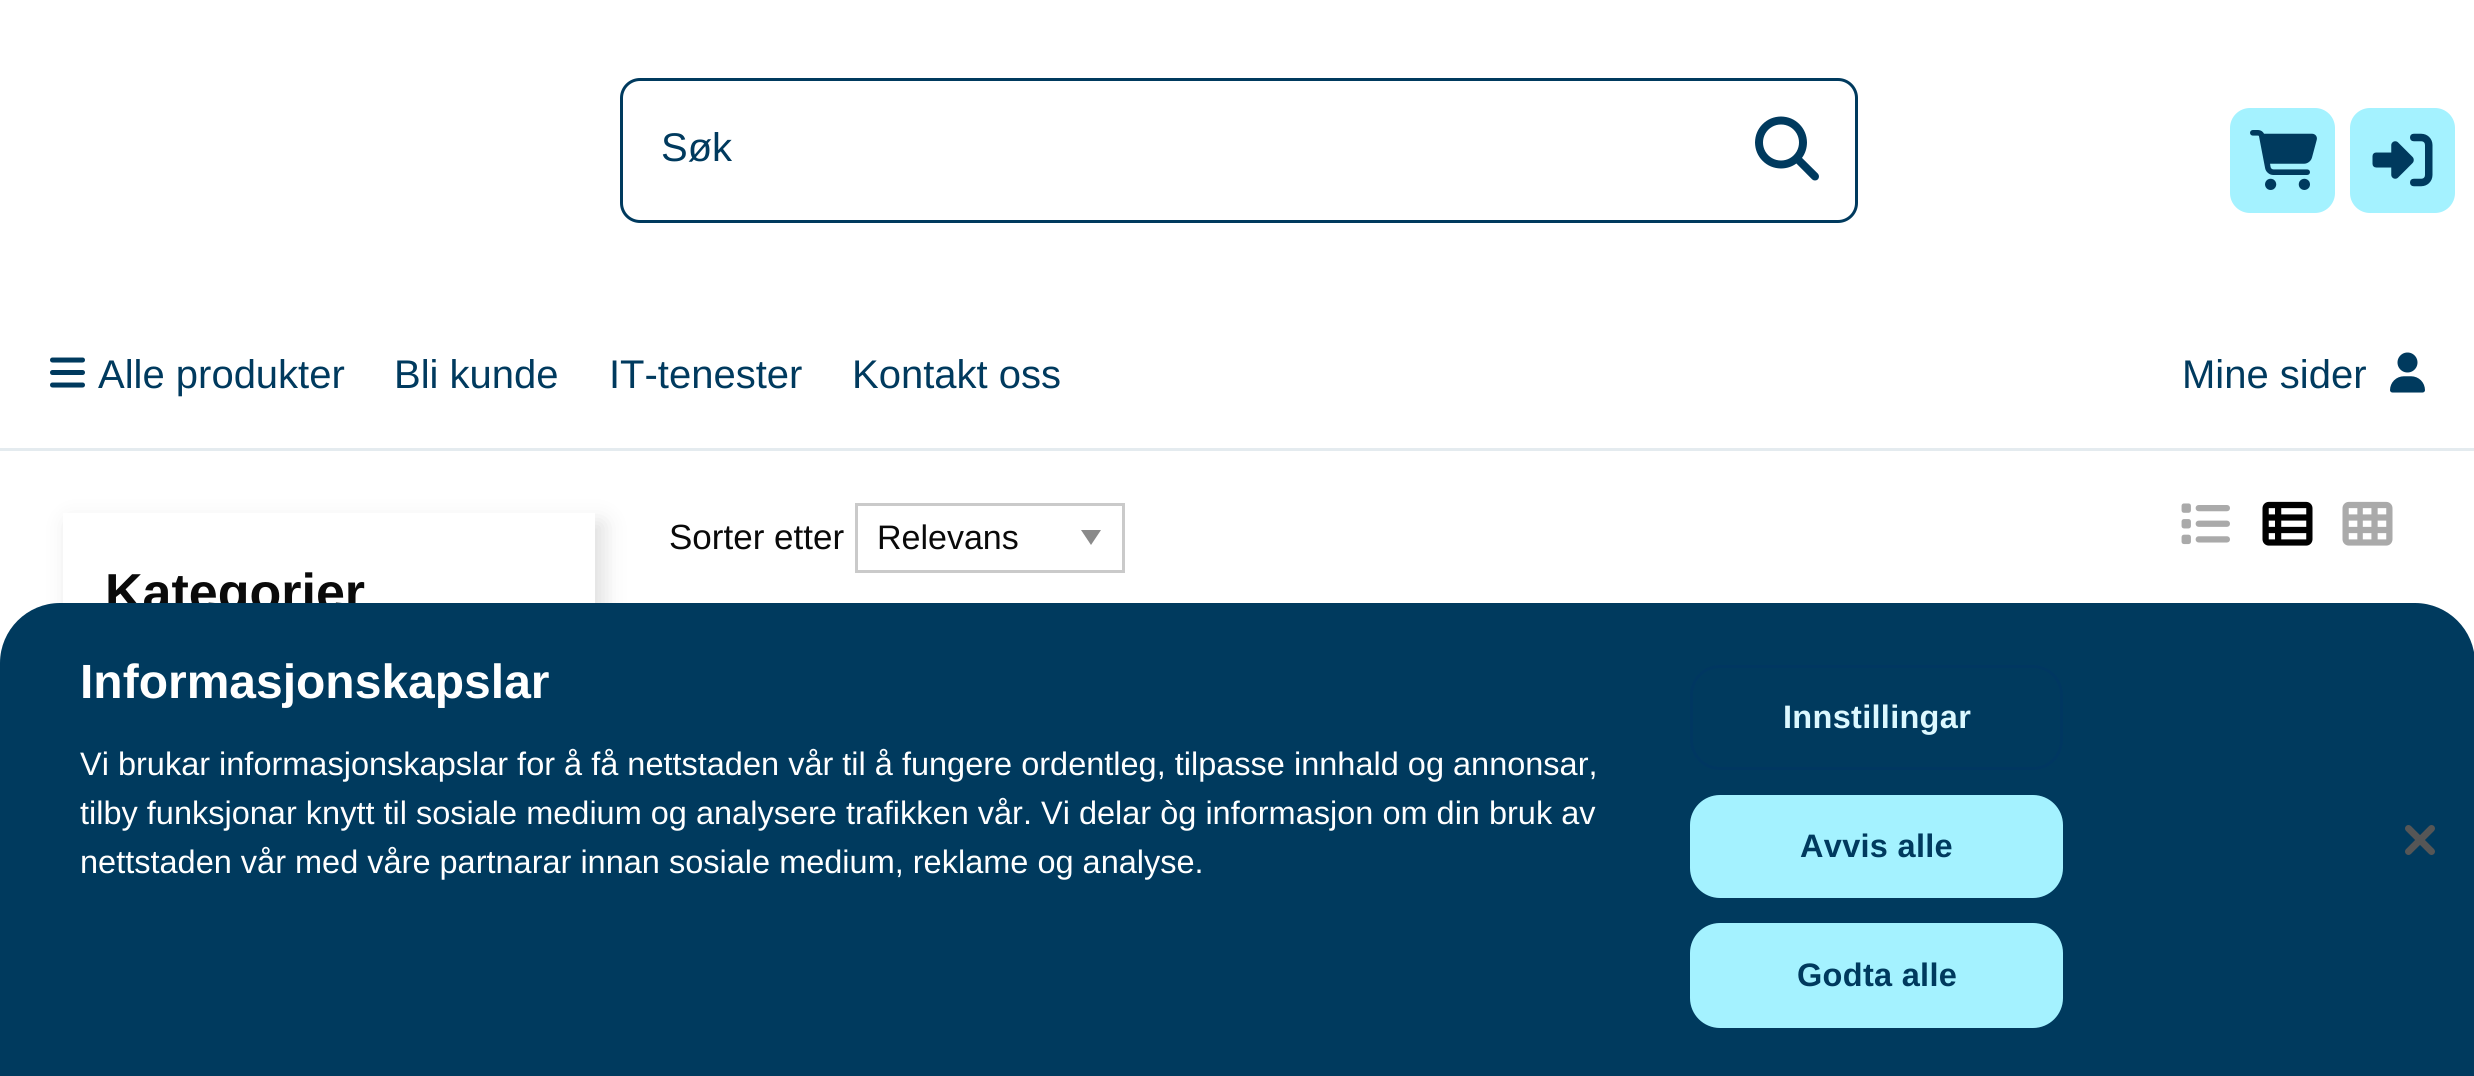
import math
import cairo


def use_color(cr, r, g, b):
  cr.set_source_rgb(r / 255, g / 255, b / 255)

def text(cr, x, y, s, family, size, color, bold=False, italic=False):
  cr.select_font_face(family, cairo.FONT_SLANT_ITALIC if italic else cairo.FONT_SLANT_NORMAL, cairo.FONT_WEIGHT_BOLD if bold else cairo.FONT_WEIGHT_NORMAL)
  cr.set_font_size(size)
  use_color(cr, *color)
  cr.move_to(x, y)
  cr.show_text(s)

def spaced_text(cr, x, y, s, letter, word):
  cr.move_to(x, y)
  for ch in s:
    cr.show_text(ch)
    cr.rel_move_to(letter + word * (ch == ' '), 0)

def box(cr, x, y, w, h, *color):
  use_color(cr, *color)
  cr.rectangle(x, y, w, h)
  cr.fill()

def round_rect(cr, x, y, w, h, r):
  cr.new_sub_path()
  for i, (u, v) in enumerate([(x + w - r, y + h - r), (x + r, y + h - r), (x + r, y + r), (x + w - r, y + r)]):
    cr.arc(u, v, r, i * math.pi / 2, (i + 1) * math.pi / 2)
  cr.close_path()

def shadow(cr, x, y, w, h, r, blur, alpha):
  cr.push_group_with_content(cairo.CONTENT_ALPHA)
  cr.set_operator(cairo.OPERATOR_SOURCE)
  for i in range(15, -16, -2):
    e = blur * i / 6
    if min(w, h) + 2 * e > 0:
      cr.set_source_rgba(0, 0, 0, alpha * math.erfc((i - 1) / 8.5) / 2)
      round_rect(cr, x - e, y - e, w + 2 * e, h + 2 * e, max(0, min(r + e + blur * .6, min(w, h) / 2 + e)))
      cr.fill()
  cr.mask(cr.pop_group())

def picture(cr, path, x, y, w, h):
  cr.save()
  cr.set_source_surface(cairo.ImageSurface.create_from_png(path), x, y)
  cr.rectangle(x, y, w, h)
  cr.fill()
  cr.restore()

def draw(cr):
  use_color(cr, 255, 255, 255)
  cr.paint()
  round_rect(cr, 621.5, 79.5, 1235, 142, 18.5)
  use_color(cr, 0, 58, 94)
  cr.set_line_width(3)
  cr.stroke()
  picture(cr, "img_01.png", 1755, 116, 64, 65)
  use_color(cr, 164, 242, 255)
  round_rect(cr, 2230, 108, 105, 105, 20)
  cr.fill()
  picture(cr, "img_02.png", 2250, 130, 67, 60)
  round_rect(cr, 2350, 108, 105, 105, 20)
  cr.fill()
  picture(cr, "img_03.png", 2372, 133, 61, 54)
  box(cr, 0, 448, 2474, 3, 228, 235, 239)
  picture(cr, "img_04.png", 50, 357, 35, 31)
  picture(cr, "img_05.png", 2390, 352, 35, 41)
  use_color(cr, 138, 138, 138)
  cr.new_path()
  cr.move_to(1081, 530)
  cr.line_to(1101, 530)
  cr.line_to(1091, 545)
  cr.close_path()
  cr.fill()
  cr.rectangle(856.5, 504.5, 267, 67)
  use_color(cr, 202, 202, 202)
  cr.stroke()
  picture(cr, "img_06.png", 2181, 503, 49, 42)
  picture(cr, "img_07.png", 2262, 501, 51, 45)
  picture(cr, "img_08.png", 2342, 501, 51, 45)
  cr.save()
  cr.set_fill_rule(cairo.FILL_RULE_EVEN_ODD)
  cr.new_path()
  cr.move_to(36, 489)
  cr.line_to(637, 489)
  cr.line_to(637, 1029)
  cr.line_to(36, 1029)
  cr.close_path()
  cr.move_to(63, 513)
  cr.line_to(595, 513)
  cr.line_to(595, 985)
  cr.line_to(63, 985)
  cr.close_path()
  cr.clip()
  use_color(cr, 221, 221, 221)
  shadow(cr, 70, 523, 533, 472, 0, 11, 1)
  cr.restore()
  text(cr, 661, 161, "Søk", "Liberation Sans", 40, (0, 58, 94))
  text(cr, 98, 388, "Alle produkter", "Liberation Sans", 40, (0, 58, 94))
  text(cr, 394, 388, "Bli kunde", "Liberation Sans", 40, (0, 58, 94))
  text(cr, 609, 388, "IT-tenester", "Liberation Sans", 40, (0, 58, 94))
  text(cr, 852, 388, "Kontakt oss", "Liberation Sans", 40, (0, 58, 94))
  text(cr, 2182, 388, "Mine sider", "Liberation Sans", 40, (0, 58, 94))
  text(cr, 669, 549, "Sorter etter", "Liberation Sans", 35, (10, 10, 10))
  text(cr, 877, 549, "Relevans", "Liberation Sans", 34, (10, 10, 10))
  text(cr, 105, 610, "Kategorier", "Liberation Sans", 52, (10, 10, 10), bold=True)
  use_color(cr, 0, 58, 94)
  cr.new_path()
  cr.move_to(60, 603)
  cr.line_to(2415, 603)
  cr.curve_to(2448, 603, 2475, 630, 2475, 663)
  cr.line_to(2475, 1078)
  cr.line_to(0, 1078)
  cr.line_to(0, 663)
  cr.curve_to(0, 630, 27, 603, 60, 603)
  cr.close_path()
  cr.fill()
  text(cr, 80, 698, "Informasjonskapslar", "Liberation Sans", 48, (255, 255, 255), bold=True)
  text(cr, 80, 775, "Vi brukar informasjonskapslar for å få nettstaden vår til å fungere ordentleg, tilpasse innhald og annonsar,", "Liberation Sans", 32.5, (255, 255, 255))
  text(cr, 80, 824, "tilby funksjonar knytt til sosiale medium og analysere trafikken vår. Vi delar òg informasjon om din bruk av", "Liberation Sans", 32.5, (255, 255, 255))
  text(cr, 80, 873, "nettstaden vår med våre partnarar innan sosiale medium, reklame og analyse.", "Liberation Sans", 32.5, (255, 255, 255))
  round_rect(cr, 1691.5, 666.5, 370, 102, 28.5)
  use_color(cr, 0, 55, 97)
  cr.stroke()
  cr.select_font_face("Liberation Sans", cairo.FONT_SLANT_NORMAL, cairo.FONT_WEIGHT_BOLD)
  use_color(cr, 220, 248, 255)
  spaced_text(cr, 1783, 728, "Innstillingar", 0.3, 0)
  use_color(cr, 164, 242, 255)
  round_rect(cr, 1691.5, 796.5, 370, 100, 28.5)
  cr.fill_preserve()
  cr.stroke()
  use_color(cr, 0, 58, 94)
  spaced_text(cr, 1800, 857, "Avvis alle", 0.3, 0)
  use_color(cr, 164, 242, 255)
  round_rect(cr, 1691.5, 924.5, 370, 102, 28.5)
  cr.fill_preserve()
  cr.stroke()
  use_color(cr, 0, 58, 94)
  spaced_text(cr, 1797, 986, "Godta alle", 0.3, 0)
  picture(cr, "img_09.png", 2405, 825, 30, 30)


surface = cairo.ImageSurface(cairo.FORMAT_RGB24, 2474, 1076)
cr = cairo.Context(surface)
options = cairo.FontOptions()
options.set_hint_metrics(cairo.HINT_METRICS_OFF)
options.set_hint_style(cairo.HINT_STYLE_NONE)
cr.set_font_options(options)
cr.set_miter_limit(4)
draw(cr)
surface.write_to_png("out.png")
